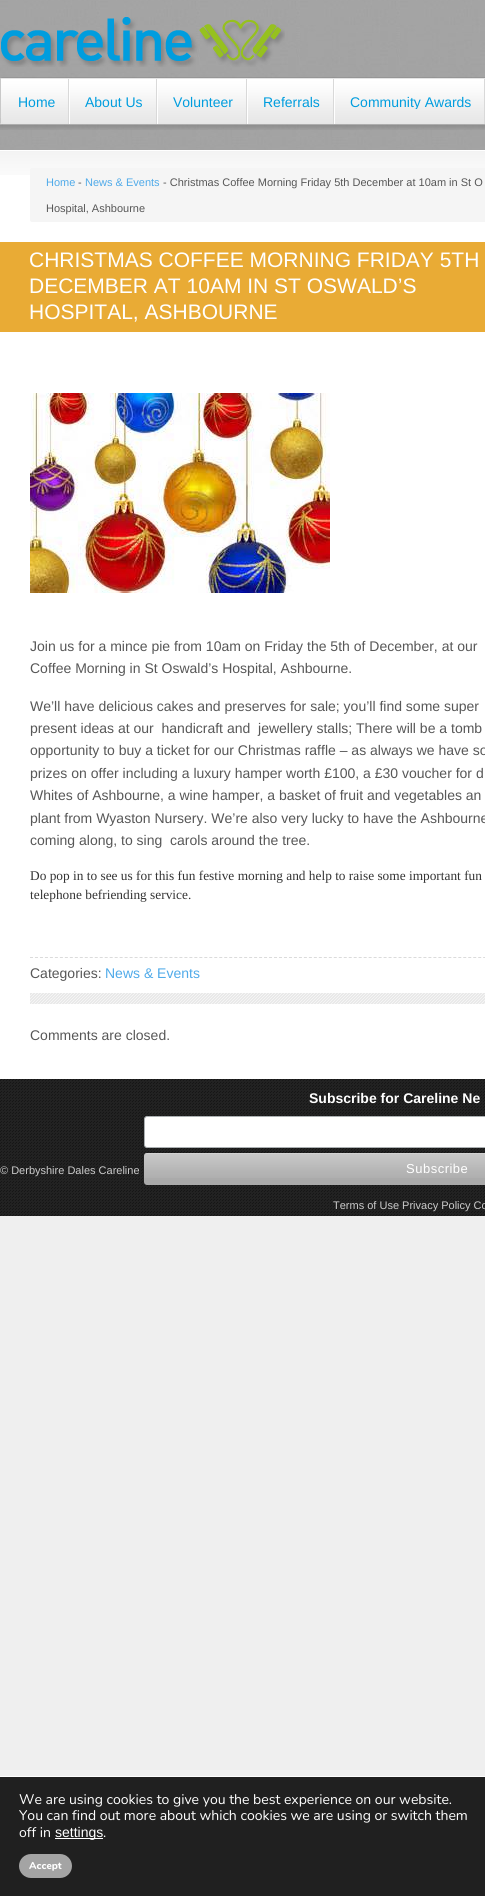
import math
import cairo


def use_color(cr, r, g, b):
  cr.set_source_rgb(r / 255, g / 255, b / 255)

def text(cr, x, y, s, family, size, color, bold=False, italic=False):
  cr.select_font_face(family, cairo.FONT_SLANT_ITALIC if italic else cairo.FONT_SLANT_NORMAL, cairo.FONT_WEIGHT_BOLD if bold else cairo.FONT_WEIGHT_NORMAL)
  cr.set_font_size(size)
  use_color(cr, *color)
  cr.move_to(x, y)
  cr.show_text(s)

def spaced_text(cr, x, y, s, letter, word):
  cr.move_to(x, y)
  for ch in s:
    cr.show_text(ch)
    cr.rel_move_to(letter + word * (ch == ' '), 0)

def box(cr, x, y, w, h, *color):
  use_color(cr, *color)
  cr.rectangle(x, y, w, h)
  cr.fill()

def round_rect(cr, x, y, w, h, r):
  cr.new_sub_path()
  for i, (u, v) in enumerate([(x + w - r, y + h - r), (x + r, y + h - r), (x + r, y + r), (x + w - r, y + r)]):
    cr.arc(u, v, r, i * math.pi / 2, (i + 1) * math.pi / 2)
  cr.close_path()

def picture(cr, path, x, y, w, h):
  cr.save()
  cr.set_source_surface(cairo.ImageSurface.create_from_png(path), x, y)
  cr.rectangle(x, y, w, h)
  cr.fill()
  cr.restore()

def draw(cr):
  use_color(cr, 239, 239, 239)
  cr.paint()
  picture(cr, "img_01.png", 0, 0, 485, 150)
  picture(cr, "img_02.png", 1, 17, 284, 50)
  picture(cr, "img_03.png", 0, 77, 3, 53)
  picture(cr, "img_04.png", 3, 77, 482, 53)
  picture(cr, "img_05.png", 68, 79, 2, 45)
  picture(cr, "img_05.png", 156, 79, 2, 45)
  picture(cr, "img_05.png", 246, 79, 2, 45)
  picture(cr, "img_05.png", 333, 79, 2, 45)
  box(cr, 484, 79, 1, 45, 217, 217, 217)
  box(cr, 0, 150, 485, 929, 255, 255, 255)
  picture(cr, "img_06.png", 0, 151, 485, 24)
  use_color(cr, 245, 245, 245)
  round_rect(cr, 30, 168, 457, 54, 2)
  cr.fill()
  picture(cr, "img_07.png", 30, 993, 455, 11)
  box(cr, 0, 242, 485, 90, 233, 171, 53)
  picture(cr, "img_08.png", 30, 393, 300, 200)
  cr.new_path()
  cr.move_to(30, 957.5)
  cr.line_to(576, 957.5)
  use_color(cr, 219, 219, 219)
  cr.set_line_width(1)
  cr.set_dash([3, 1.98])
  cr.stroke()
  picture(cr, "img_09.png", 0, 1079, 485, 137)
  use_color(cr, 255, 255, 255)
  round_rect(cr, 144.5, 1116.5, 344, 31, 2.5)
  cr.fill_preserve()
  use_color(cr, 171, 176, 178)
  cr.set_dash([])
  cr.stroke()
  use_color(cr, 170, 170, 170)
  round_rect(cr, 144, 1153, 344, 32, 3)
  cr.fill()
  picture(cr, "img_10.png", 144, 1153, 341, 25)
  box(cr, 0, 1777, 485, 119, 32, 32, 32)
  box(cr, 0, 1776, 485, 1, 255, 255, 255)
  box(cr, 55, 1838, 48, 1, 255, 255, 255)
  use_color(cr, 164, 164, 164)
  round_rect(cr, 19, 1854, 53, 24, 12)
  cr.fill()
  text(cr, 18, 107, "Home", "Liberation Sans", 14, (0, 157, 222))
  text(cr, 85, 107, "About Us", "Liberation Sans", 14, (0, 157, 222))
  text(cr, 173, 107, "Volunteer", "Liberation Sans", 14, (0, 157, 222))
  text(cr, 263, 107, "Referrals", "Liberation Sans", 14, (0, 157, 222))
  cr.save()
  cr.rectangle(350, 94, 121, 15)
  cr.clip()
  text(cr, 350, 107, "Community Awards", "Liberation Sans", 14, (0, 157, 222))
  cr.restore()
  text(cr, 46, 186, "Home", "Liberation Sans", 11, (79, 170, 233))
  text(cr, 78, 186, "-", "Liberation Sans", 11, (87, 87, 87))
  text(cr, 85, 186, "News & Events", "Liberation Sans", 11, (79, 170, 233))
  text(cr, 163, 186, "- Christmas Coffee Morning Friday 5th December at 10am in St O", "Liberation Sans", 11, (87, 87, 87))
  text(cr, 46, 212, "Hospital, Ashbourne", "Liberation Sans", 11, (87, 87, 87))
  text(cr, 29, 267, "CHRISTMAS COFFEE MORNING FRIDAY 5TH", "Liberation Sans", 21, (255, 255, 255))
  text(cr, 29, 293, "DECEMBER AT 10AM IN ST OSWALD’S", "Liberation Sans", 21, (255, 255, 255))
  text(cr, 29, 319, "HOSPITAL, ASHBOURNE", "Liberation Sans", 21, (255, 255, 255))
  text(cr, 30, 651, "Join us for a mince pie from 10am on Friday the 5th of December, at our", "Liberation Sans", 14, (87, 87, 87))
  text(cr, 30, 673, "Coffee Morning in St Oswald’s Hospital, Ashbourne.", "Liberation Sans", 14, (87, 87, 87))
  text(cr, 30, 711, "We’ll have delicious cakes and preserves for sale; you’ll find some super", "Liberation Sans", 14, (87, 87, 87))
  text(cr, 30, 733, "present ideas at our  handicraft and  jewellery stalls; There will be a tomb", "Liberation Sans", 14, (87, 87, 87))
  text(cr, 30, 755, "opportunity to buy a ticket for our Christmas raffle – as always we have so", "Liberation Sans", 14, (87, 87, 87))
  text(cr, 30, 778, "prizes on offer including a luxury hamper worth £100, a £30 voucher for d", "Liberation Sans", 14, (87, 87, 87))
  text(cr, 30, 800, "Whites of Ashbourne, a wine hamper, a basket of fruit and vegetables an", "Liberation Sans", 14, (87, 87, 87))
  text(cr, 30, 823, "plant from Wyaston Nursery. We’re also very lucky to have the Ashbourne", "Liberation Sans", 14, (87, 87, 87))
  text(cr, 30, 845, "coming along, to sing  carols around the tree.", "Liberation Sans", 14, (87, 87, 87))
  text(cr, 30, 880, "Do pop in to see us for this fun festive morning and help to raise some important fun", "Liberation Serif", 13.35, (51, 51, 51))
  text(cr, 30, 899, "telephone befriending service.", "Liberation Serif", 13.35, (51, 51, 51))
  text(cr, 30, 978, "Categories:", "Liberation Sans", 14, (87, 87, 87))
  text(cr, 105, 978, "News & Events", "Liberation Sans", 14, (79, 170, 233))
  text(cr, 30, 1040, "Comments are closed.", "Liberation Sans", 14, (87, 87, 87))
  text(cr, 0, 1174, "© Derbyshire Dales Careline", "Liberation Sans", 11, (204, 204, 204))
  text(cr, 309, 1103, "Subscribe for Careline Ne", "Liberation Sans", 14, (255, 255, 255), bold=True)
  cr.select_font_face("Liberation Sans")
  cr.set_font_size(13)
  spaced_text(cr, 406, 1173, "Subscribe", 0.5, 0)
  text(cr, 333, 1209, "Terms of Use Privacy Policy Co", "Liberation Sans", 11, (204, 204, 204))
  text(cr, 19, 1804, "We are using cookies to give you the best experience on our website.", "Nunito", 14, (255, 255, 255))
  text(cr, 19, 1820, "You can find out more about which cookies we are using or switch them", "Nunito", 14, (255, 255, 255))
  text(cr, 19, 1837, "off in", "Nunito", 14, (255, 255, 255))
  text(cr, 55, 1837, "settings", "Liberation Sans", 14, (255, 255, 255))
  text(cr, 103, 1837, ".", "Nunito", 14, (255, 255, 255))
  text(cr, 29, 1869, "Accept", "Nunito ExtraBold", 10, (255, 255, 255))


surface = cairo.ImageSurface(cairo.FORMAT_RGB24, 485, 1896)
cr = cairo.Context(surface)
options = cairo.FontOptions()
options.set_hint_metrics(cairo.HINT_METRICS_OFF)
options.set_hint_style(cairo.HINT_STYLE_NONE)
cr.set_font_options(options)
cr.set_miter_limit(4)
draw(cr)
surface.write_to_png("out.png")
